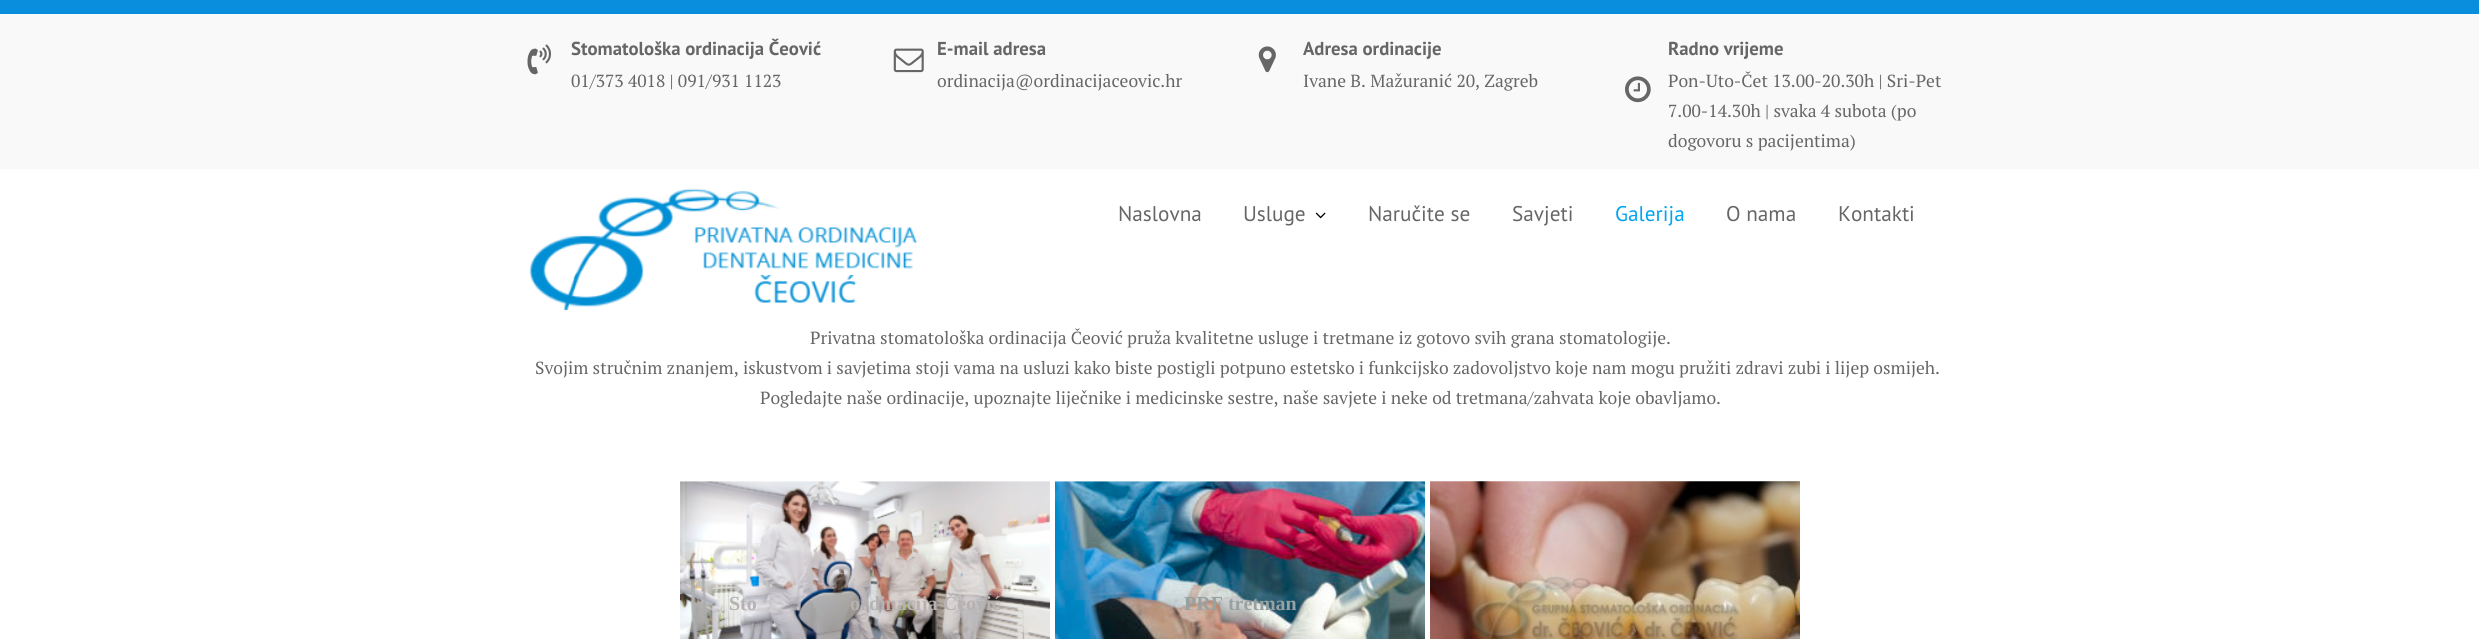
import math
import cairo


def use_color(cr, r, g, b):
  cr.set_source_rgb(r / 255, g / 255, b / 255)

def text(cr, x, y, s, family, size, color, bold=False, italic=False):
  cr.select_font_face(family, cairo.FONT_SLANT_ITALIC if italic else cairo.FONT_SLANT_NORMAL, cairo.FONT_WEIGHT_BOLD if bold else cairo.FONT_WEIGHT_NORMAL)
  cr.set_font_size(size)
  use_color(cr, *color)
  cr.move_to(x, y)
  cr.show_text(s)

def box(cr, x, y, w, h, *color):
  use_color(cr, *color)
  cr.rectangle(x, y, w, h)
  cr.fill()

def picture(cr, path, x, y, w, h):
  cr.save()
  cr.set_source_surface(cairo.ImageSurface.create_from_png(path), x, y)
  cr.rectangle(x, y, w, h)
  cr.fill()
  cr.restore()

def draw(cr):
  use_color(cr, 255, 255, 255)
  cr.paint()
  box(cr, 0, 0, 2479, 14, 8, 142, 221)
  box(cr, 0, 14, 2479, 155, 249, 249, 249)
  picture(cr, "img_01.png", 527, 44, 25, 31)
  picture(cr, "img_02.png", 893, 48, 31, 25)
  picture(cr, "img_03.png", 1258, 46, 18, 27)
  picture(cr, "img_04.png", 1625, 76, 26, 27)
  picture(cr, "img_05.png", 529, 188, 389, 122)
  picture(cr, "img_06.png", 1315, 212, 11, 7)
  picture(cr, "img_07.png", 680, 481, 370, 158)
  picture(cr, "img_08.png", 1055, 481, 370, 158)
  picture(cr, "img_09.png", 1430, 481, 370, 158)
  text(cr, 571, 55, "Stomatološka ordinacija Čeović", "PT Sans", 18.75, (102, 102, 102), bold=True)
  text(cr, 571, 87, "01/373 4018 | 091/931 1123", "PT Serif", 17.5, (102, 102, 102))
  text(cr, 937, 55, "E-mail adresa", "PT Sans", 18.75, (102, 102, 102), bold=True)
  text(cr, 937, 87, "ordinacija@ordinacijaceovic.hr", "PT Serif", 17.5, (102, 102, 102))
  text(cr, 1303, 55, "Adresa ordinacije", "PT Sans", 18.75, (102, 102, 102), bold=True)
  text(cr, 1303, 87, "Ivane B. Mažuranić 20, Zagreb", "PT Serif", 17.5, (102, 102, 102))
  text(cr, 1668, 55, "Radno vrijeme", "PT Sans", 18.75, (102, 102, 102), bold=True)
  text(cr, 1668, 87, "Pon-Uto-Čet 13.00-20.30h | Sri-Pet", "PT Serif", 17.5, (102, 102, 102))
  text(cr, 1668, 117, "7.00-14.30h | svaka 4 subota (po", "PT Serif", 17.5, (102, 102, 102))
  text(cr, 1668, 147, "dogovoru s pacijentima)", "PT Serif", 17.5, (102, 102, 102))
  text(cr, 1118, 221, "Naslovna", "PT Sans", 21.25, (102, 102, 102))
  text(cr, 1243, 221, "Usluge", "PT Sans", 21.25, (102, 102, 102))
  text(cr, 1368, 221, "Naručite se", "PT Sans", 21.25, (102, 102, 102))
  text(cr, 1512, 221, "Savjeti", "PT Sans", 21.25, (102, 102, 102))
  text(cr, 1615, 221, "Galerija", "PT Sans", 21.25, (0, 164, 239))
  text(cr, 1726, 221, "O nama", "PT Sans", 21.25, (102, 102, 102))
  text(cr, 1838, 221, "Kontakti", "PT Sans", 21.25, (102, 102, 102))
  text(cr, 810, 344, "Privatna stomatološka ordinacija Čeović pruža kvalitetne usluge i tretmane iz gotovo svih grana stomatologije.", "PT Serif", 17.5, (102, 102, 102))
  text(cr, 535, 374, "Svojim stručnim znanjem, iskustvom i savjetima stoji vama na usluzi kako biste postigli potpuno estetsko i funkcijsko zadovoljstvo koje nam mogu pružiti zdravi zubi i lijep osmijeh.", "PT Serif", 17.5, (102, 102, 102))
  text(cr, 760, 404, "Pogledajte naše ordinacije, upoznajte liječnike i medicinske sestre, naše savjete i neke od tretmana/zahvata koje obavljamo.", "PT Serif", 17.5, (102, 102, 102))
  text(cr, 729, 610, "Sto", "Liberation Serif", 20, (183, 178, 178), bold=True)
  text(cr, 850, 610, "ordinacija Čeović", "Liberation Serif", 20, (183, 178, 178), bold=True)
  text(cr, 1184, 610, "PRF tretman", "Liberation Serif", 20, (151, 161, 162), bold=True)


surface = cairo.ImageSurface(cairo.FORMAT_RGB24, 2479, 639)
cr = cairo.Context(surface)
options = cairo.FontOptions()
options.set_hint_metrics(cairo.HINT_METRICS_OFF)
options.set_hint_style(cairo.HINT_STYLE_NONE)
cr.set_font_options(options)
cr.set_miter_limit(4)
draw(cr)
surface.write_to_png("out.png")
